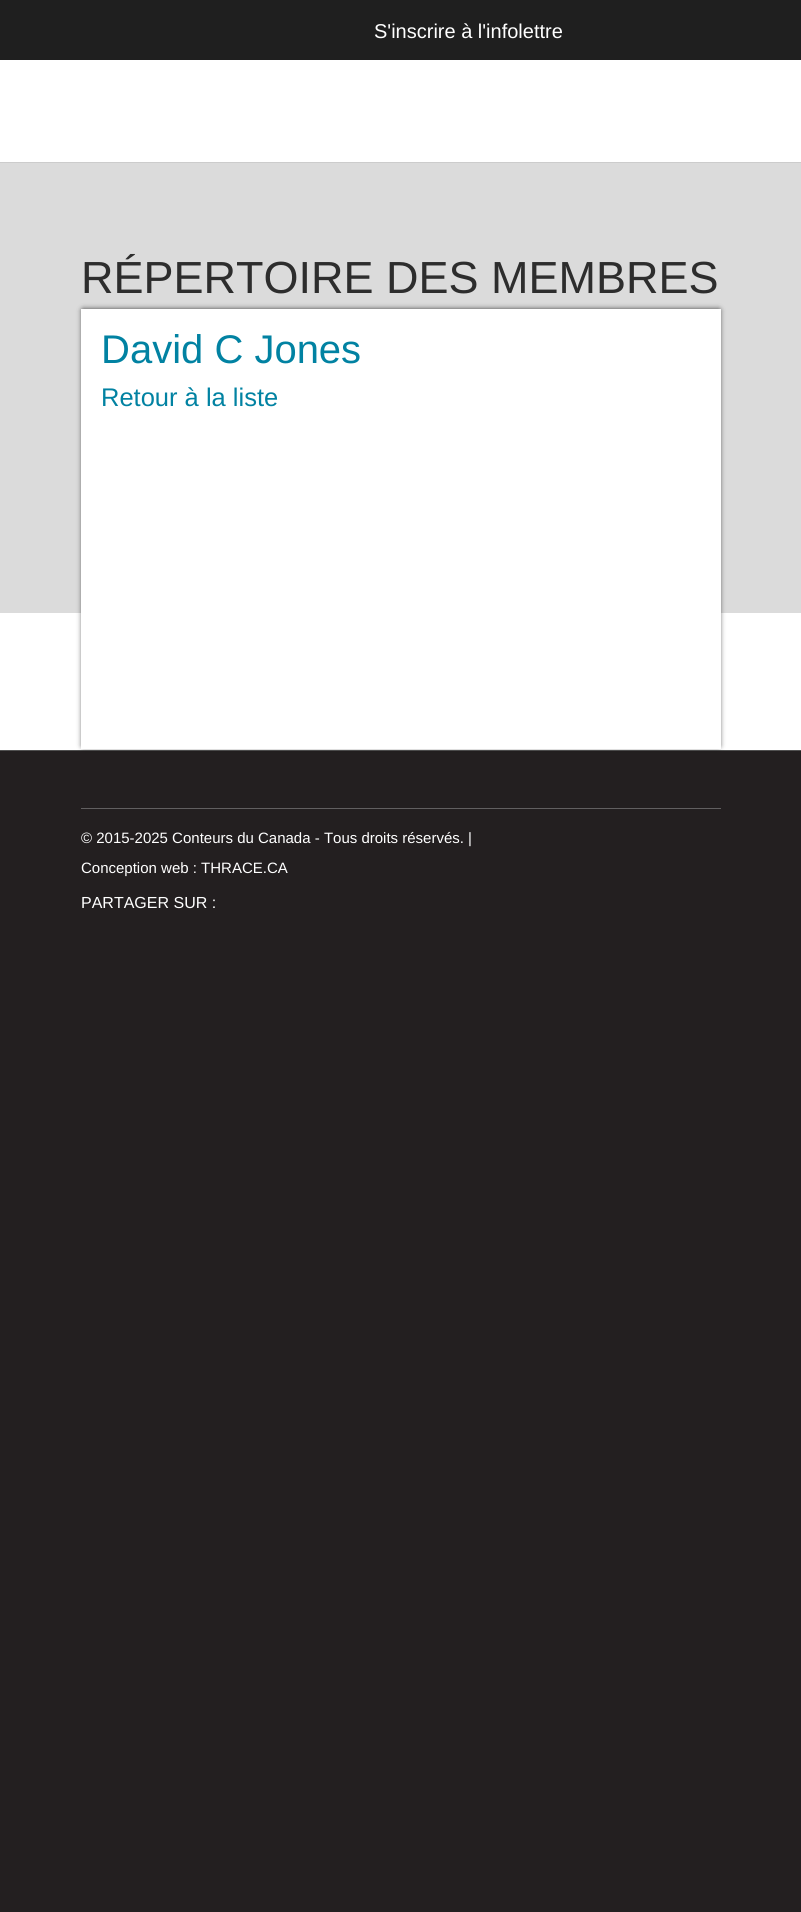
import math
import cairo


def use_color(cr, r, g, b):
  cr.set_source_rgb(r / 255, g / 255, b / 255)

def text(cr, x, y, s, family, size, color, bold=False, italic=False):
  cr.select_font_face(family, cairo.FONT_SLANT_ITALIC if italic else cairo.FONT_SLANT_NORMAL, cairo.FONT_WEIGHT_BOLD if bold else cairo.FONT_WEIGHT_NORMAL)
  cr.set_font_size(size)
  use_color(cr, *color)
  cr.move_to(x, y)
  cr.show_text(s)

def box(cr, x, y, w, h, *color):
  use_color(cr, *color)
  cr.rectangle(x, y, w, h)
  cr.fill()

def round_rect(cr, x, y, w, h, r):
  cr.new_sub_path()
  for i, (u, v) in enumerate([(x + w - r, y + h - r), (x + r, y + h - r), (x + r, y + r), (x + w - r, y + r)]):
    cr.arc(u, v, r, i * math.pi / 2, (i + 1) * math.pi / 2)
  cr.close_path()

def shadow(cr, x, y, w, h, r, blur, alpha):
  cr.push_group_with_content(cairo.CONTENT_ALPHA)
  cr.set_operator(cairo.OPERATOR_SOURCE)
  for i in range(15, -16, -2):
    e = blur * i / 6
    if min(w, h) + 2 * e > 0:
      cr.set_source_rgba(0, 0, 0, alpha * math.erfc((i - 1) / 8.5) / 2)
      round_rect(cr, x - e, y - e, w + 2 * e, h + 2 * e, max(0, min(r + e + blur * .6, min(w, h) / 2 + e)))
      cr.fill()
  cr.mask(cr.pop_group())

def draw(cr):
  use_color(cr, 35, 31, 32)
  cr.paint()
  box(cr, 0, 0, 801, 60, 31, 31, 31)
  box(cr, 0, 60, 801, 102, 255, 255, 255)
  box(cr, 0, 162, 801, 1, 204, 204, 204)
  box(cr, 0, 163, 801, 450, 219, 219, 219)
  box(cr, 0, 613, 801, 137, 255, 255, 255)
  box(cr, 0, 750, 801, 1, 81, 81, 81)
  use_color(cr, 0, 0, 0)
  shadow(cr, 83, 310, 636, 436, 0, 3, 1)
  box(cr, 81, 309, 640, 440, 255, 255, 255)
  box(cr, 81, 808, 640, 1, 97, 95, 96)
  text(cr, 374, 38, "S'inscrire à l'infolettre", "Liberation Sans", 20, (255, 255, 255))
  text(cr, 81, 293, "RÉPERTOIRE DES MEMBRES", "Liberation Sans", 45, (45, 45, 45))
  text(cr, 101, 363, "David C Jones", "Liberation Sans", 40, (1, 130, 162))
  text(cr, 101, 406, "Retour à la liste", "Liberation Sans", 25.5, (1, 130, 162))
  text(cr, 81, 843, "© 2015-2025 Conteurs du Canada - Tous droits réservés. |", "Liberation Sans", 15, (255, 255, 255))
  text(cr, 81, 873, "Conception web : THRACE.CA", "Liberation Sans", 15, (255, 255, 255))
  text(cr, 81, 908, "PARTAGER SUR :", "Liberation Sans", 16, (255, 255, 255))


surface = cairo.ImageSurface(cairo.FORMAT_RGB24, 801, 1912)
cr = cairo.Context(surface)
options = cairo.FontOptions()
options.set_hint_metrics(cairo.HINT_METRICS_OFF)
options.set_hint_style(cairo.HINT_STYLE_NONE)
cr.set_font_options(options)
cr.set_miter_limit(4)
draw(cr)
surface.write_to_png("out.png")
